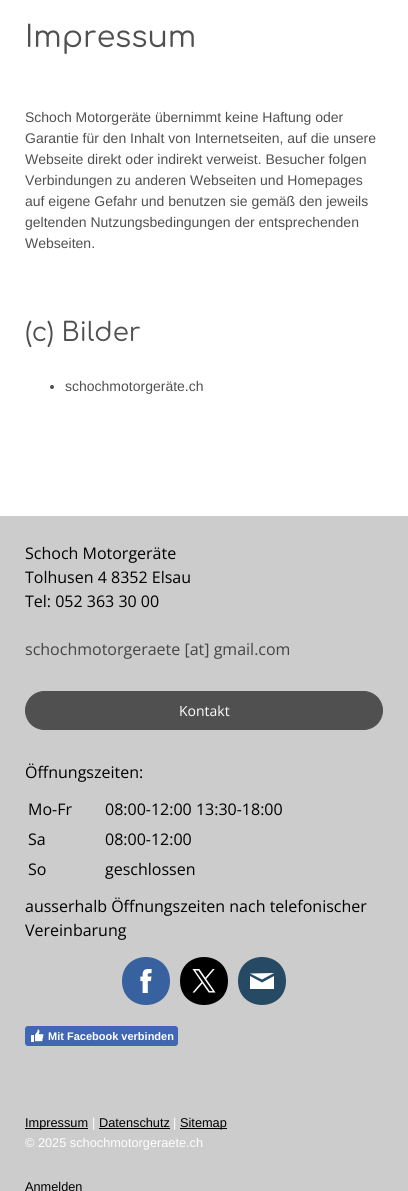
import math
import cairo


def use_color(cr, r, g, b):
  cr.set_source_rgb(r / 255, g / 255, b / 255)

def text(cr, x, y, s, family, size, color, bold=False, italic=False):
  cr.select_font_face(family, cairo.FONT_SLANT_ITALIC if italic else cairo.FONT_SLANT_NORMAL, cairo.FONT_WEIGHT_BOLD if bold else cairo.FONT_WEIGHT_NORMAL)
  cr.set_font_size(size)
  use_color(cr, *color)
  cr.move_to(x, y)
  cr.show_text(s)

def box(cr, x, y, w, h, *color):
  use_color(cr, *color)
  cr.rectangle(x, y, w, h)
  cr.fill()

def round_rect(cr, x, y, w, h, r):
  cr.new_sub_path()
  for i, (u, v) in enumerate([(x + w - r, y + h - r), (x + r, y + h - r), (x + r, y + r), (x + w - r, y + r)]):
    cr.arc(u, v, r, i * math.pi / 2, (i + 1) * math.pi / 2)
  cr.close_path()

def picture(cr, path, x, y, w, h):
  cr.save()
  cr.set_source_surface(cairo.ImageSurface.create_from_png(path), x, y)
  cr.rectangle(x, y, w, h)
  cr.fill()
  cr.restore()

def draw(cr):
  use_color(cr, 255, 255, 255)
  cr.paint()
  use_color(cr, 80, 80, 80)
  cr.arc(52, 387, 2, 0, 2 * math.pi)
  cr.fill()
  box(cr, 0, 516, 408, 675, 204, 204, 204)
  use_color(cr, 80, 80, 80)
  round_rect(cr, 25.5, 691.5, 357, 38, 19)
  cr.fill_preserve()
  cr.set_line_width(1)
  cr.stroke()
  use_color(cr, 56, 97, 159)
  cr.new_path()
  cr.move_to(122, 981)
  cr.curve_to(122, 1013, 170, 1013, 170, 981)
  cr.curve_to(170, 949, 122, 949, 122, 981)
  cr.close_path()
  cr.fill()
  picture(cr, "img_01.png", 140, 969, 12, 24)
  use_color(cr, 0, 0, 0)
  cr.new_path()
  cr.move_to(180, 981)
  cr.curve_to(180, 1013, 228, 1013, 228, 981)
  cr.curve_to(228, 949, 180, 949, 180, 981)
  cr.close_path()
  cr.fill()
  picture(cr, "img_02.png", 192, 969, 24, 24)
  use_color(cr, 38, 74, 100)
  cr.new_path()
  cr.move_to(238, 981)
  cr.curve_to(238, 1013, 286, 1013, 286, 981)
  cr.curve_to(286, 949, 238, 949, 238, 981)
  cr.close_path()
  cr.fill()
  use_color(cr, 255, 255, 255)
  cr.new_path()
  cr.move_to(274, 989)
  cr.line_to(250, 989)
  cr.line_to(250, 976)
  cr.line_to(262, 982.5)
  cr.line_to(274, 976)
  cr.close_path()
  cr.move_to(274, 973)
  cr.line_to(250, 973.5)
  cr.line_to(262, 979.5)
  cr.close_path()
  cr.fill()
  use_color(cr, 66, 103, 178)
  round_rect(cr, 25.5, 1026.5, 152, 19, 2.5)
  cr.fill_preserve()
  cr.stroke()
  picture(cr, "img_03.png", 31, 1029, 13, 13)
  box(cr, 25, 1128, 63, 1, 0, 0, 0)
  box(cr, 99, 1128, 71, 1, 0, 0, 0)
  box(cr, 180, 1128, 47, 1, 0, 0, 0)
  text(cr, 25, 47, "Impressum", "Comfortaa", 30, (80, 80, 80))
  text(cr, 25, 122, "Schoch Motorgeräte übernimmt keine Haftung oder", "Liberation Sans", 14, (80, 80, 80))
  text(cr, 25, 143, "Garantie für den Inhalt von Internetseiten, auf die unsere", "Liberation Sans", 14, (80, 80, 80))
  text(cr, 25, 164, "Webseite direkt oder indirekt verweist. Besucher folgen", "Liberation Sans", 14, (80, 80, 80))
  text(cr, 25, 185, "Verbindungen zu anderen Webseiten und Homepages", "Liberation Sans", 14, (80, 80, 80))
  text(cr, 25, 206, "auf eigene Gefahr und benutzen sie gemäß den jeweils", "Liberation Sans", 14, (80, 80, 80))
  text(cr, 25, 227, "geltenden Nutzungsbedingungen der entsprechenden", "Liberation Sans", 14, (80, 80, 80))
  text(cr, 25, 248, "Webseiten.", "Liberation Sans", 14, (80, 80, 80))
  text(cr, 25, 341, "(c) Bilder", "Comfortaa", 26, (80, 80, 80))
  text(cr, 65, 391, "schochmotorgeräte.ch", "Liberation Sans", 14, (80, 80, 80))
  text(cr, 25, 559, "Schoch Motorgeräte", "Open Sans", 16, (0, 0, 0))
  text(cr, 25, 583, "Tolhusen 4 8352 Elsau", "Open Sans", 16, (0, 0, 0))
  text(cr, 25, 607, "Tel: 052 363 30 00", "Open Sans", 16, (0, 0, 0))
  text(cr, 25, 655, "schochmotorgeraete [at] gmail.com", "Open Sans", 16, (68, 68, 68))
  text(cr, 179, 716, "Kontakt", "Open Sans", 14, (255, 255, 255))
  text(cr, 25, 778, "Öffnungszeiten:", "Open Sans", 16, (0, 0, 0))
  text(cr, 28, 815, "Mo-Fr", "Open Sans", 16, (0, 0, 0))
  text(cr, 105, 815, "08:00-12:00 13:30-18:00", "Open Sans", 16, (0, 0, 0))
  text(cr, 28, 845, "Sa", "Open Sans", 16, (0, 0, 0))
  text(cr, 105, 845, "08:00-12:00", "Open Sans", 16, (0, 0, 0))
  text(cr, 28, 875, "So", "Open Sans", 16, (0, 0, 0))
  text(cr, 105, 875, "geschlossen", "Open Sans", 16, (0, 0, 0))
  text(cr, 25, 912, "ausserhalb Öffnungszeiten nach telefonischer", "Open Sans", 16, (0, 0, 0))
  text(cr, 25, 936, "Vereinbarung", "Open Sans", 16, (0, 0, 0))
  text(cr, 48, 1040, "Mit Facebook verbinden", "Liberation Sans", 11, (255, 255, 255), bold=True)
  text(cr, 25, 1127, "Impressum", "Liberation Sans", 12.75, (0, 0, 0))
  text(cr, 92, 1127, "|", "Liberation Sans", 12.75, (255, 255, 255))
  text(cr, 99, 1127, "Datenschutz", "Liberation Sans", 12.75, (0, 0, 0))
  text(cr, 173, 1127, "|", "Liberation Sans", 12.75, (255, 255, 255))
  text(cr, 180, 1127, "Sitemap", "Liberation Sans", 12.75, (0, 0, 0))
  text(cr, 25, 1147, "© 2025 schochmotorgeraete.ch", "Liberation Sans", 12.75, (255, 255, 255))
  text(cr, 25, 1191, "Anmelden", "Liberation Sans", 12.75, (0, 0, 0))


surface = cairo.ImageSurface(cairo.FORMAT_RGB24, 408, 1191)
cr = cairo.Context(surface)
options = cairo.FontOptions()
options.set_hint_metrics(cairo.HINT_METRICS_OFF)
options.set_hint_style(cairo.HINT_STYLE_NONE)
cr.set_font_options(options)
cr.set_miter_limit(4)
draw(cr)
surface.write_to_png("out.png")
